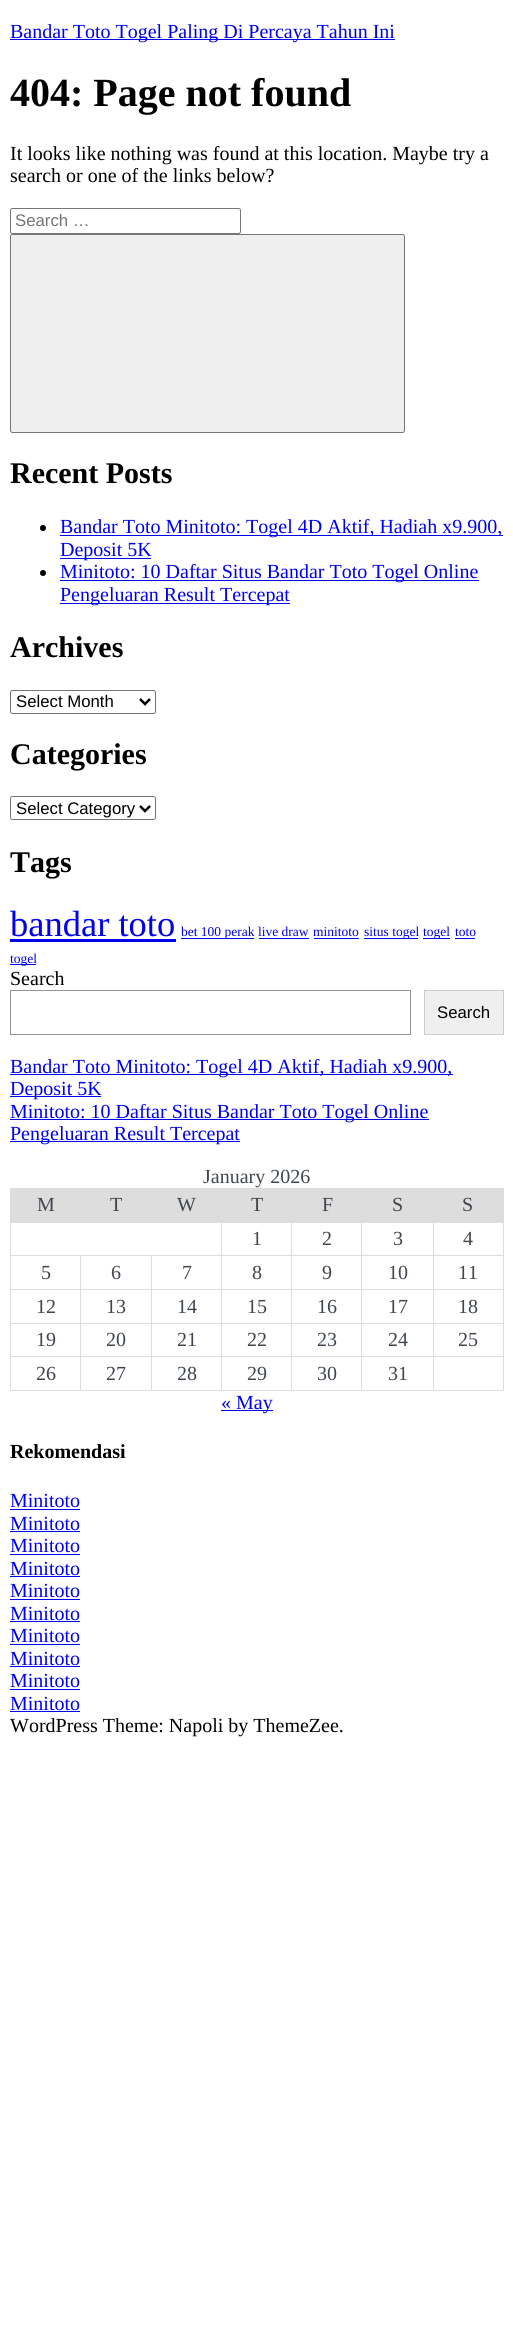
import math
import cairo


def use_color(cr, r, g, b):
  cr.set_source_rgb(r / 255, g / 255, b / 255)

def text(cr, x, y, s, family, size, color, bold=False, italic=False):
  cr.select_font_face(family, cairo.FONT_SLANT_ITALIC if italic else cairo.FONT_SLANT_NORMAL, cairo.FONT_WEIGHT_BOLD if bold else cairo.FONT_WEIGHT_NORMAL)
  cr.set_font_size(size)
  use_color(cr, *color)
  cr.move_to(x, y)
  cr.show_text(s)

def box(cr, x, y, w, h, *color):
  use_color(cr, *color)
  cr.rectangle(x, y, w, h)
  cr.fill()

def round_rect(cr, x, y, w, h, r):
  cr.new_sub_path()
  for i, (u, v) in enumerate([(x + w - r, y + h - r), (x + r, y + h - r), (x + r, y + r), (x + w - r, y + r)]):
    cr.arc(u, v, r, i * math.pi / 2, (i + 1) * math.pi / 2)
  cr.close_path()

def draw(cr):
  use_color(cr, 255, 255, 255)
  cr.paint()
  box(cr, 10, 39, 385, 1, 0, 0, 238)
  round_rect(cr, 10.5, 208.5, 230, 25, 2)
  use_color(cr, 118, 118, 118)
  cr.set_line_width(1)
  cr.stroke()
  use_color(cr, 239, 239, 239)
  round_rect(cr, 10.5, 234.5, 394, 198, 2)
  cr.fill_preserve()
  use_color(cr, 118, 118, 118)
  cr.stroke()
  use_color(cr, 0, 0, 0)
  cr.arc(43, 528, 3, 0, 2 * math.pi)
  cr.fill()
  box(cr, 60, 535, 443, 1, 0, 0, 238)
  box(cr, 60, 558, 91, 1, 0, 0, 238)
  use_color(cr, 0, 0, 0)
  cr.arc(43, 573, 3, 0, 2 * math.pi)
  cr.fill()
  box(cr, 60, 580, 419, 1, 0, 0, 238)
  box(cr, 60, 603, 230, 1, 0, 0, 238)
  round_rect(cr, 10.5, 690.5, 145, 23, 2)
  use_color(cr, 118, 118, 118)
  cr.stroke()
  cr.new_path()
  cr.move_to(140, 699)
  cr.line_to(145, 704)
  cr.line_to(150, 699)
  use_color(cr, 0, 0, 0)
  cr.set_line_width(2.5)
  cr.stroke()
  round_rect(cr, 10.5, 796.5, 145, 23, 2)
  use_color(cr, 118, 118, 118)
  cr.set_line_width(1)
  cr.stroke()
  cr.new_path()
  cr.move_to(140, 806)
  cr.line_to(145, 811)
  cr.line_to(150, 806)
  use_color(cr, 0, 0, 0)
  cr.set_line_width(2.5)
  cr.stroke()
  box(cr, 10, 939, 166, 3, 0, 0, 238)
  box(cr, 181, 938, 73, 1, 0, 0, 238)
  box(cr, 259, 938, 50, 1, 0, 0, 238)
  box(cr, 314, 938, 45, 1, 0, 0, 238)
  box(cr, 364, 938, 54, 1, 0, 0, 238)
  box(cr, 423, 938, 27, 1, 0, 0, 238)
  box(cr, 455, 938, 20, 1, 0, 0, 238)
  box(cr, 10, 964, 26, 1, 0, 0, 238)
  cr.rectangle(10.5, 990.5, 400, 44)
  use_color(cr, 148, 148, 148)
  cr.set_line_width(1)
  cr.stroke()
  use_color(cr, 239, 239, 239)
  cr.rectangle(424.5, 990.5, 79, 44)
  cr.fill_preserve()
  use_color(cr, 204, 204, 204)
  cr.stroke()
  box(cr, 10, 1074, 443, 1, 0, 0, 238)
  box(cr, 10, 1096, 91, 1, 0, 0, 238)
  box(cr, 10, 1119, 419, 1, 0, 0, 238)
  box(cr, 10, 1141, 230, 1, 0, 0, 238)
  box(cr, 11, 1189, 493, 34, 221, 221, 221)
  box(cr, 10, 1188, 494, 1, 221, 221, 221)
  box(cr, 433, 1255, 71, 1, 221, 221, 221)
  box(cr, 433, 1289, 71, 1, 221, 221, 221)
  box(cr, 433, 1323, 71, 1, 221, 221, 221)
  box(cr, 433, 1356, 71, 1, 221, 221, 221)
  box(cr, 503, 1356, 1, 35, 221, 221, 221)
  box(cr, 433, 1390, 71, 1, 221, 221, 221)
  box(cr, 433, 1356, 1, 35, 221, 221, 221)
  box(cr, 361, 1356, 73, 1, 221, 221, 221)
  box(cr, 433, 1323, 1, 35, 221, 221, 221)
  box(cr, 361, 1323, 73, 1, 221, 221, 221)
  box(cr, 433, 1289, 1, 35, 221, 221, 221)
  box(cr, 361, 1289, 73, 1, 221, 221, 221)
  box(cr, 433, 1255, 1, 35, 221, 221, 221)
  box(cr, 361, 1255, 73, 1, 221, 221, 221)
  box(cr, 361, 1390, 73, 1, 221, 221, 221)
  box(cr, 361, 1356, 1, 35, 221, 221, 221)
  box(cr, 291, 1356, 72, 1, 221, 221, 221)
  box(cr, 361, 1323, 1, 35, 221, 221, 221)
  box(cr, 291, 1323, 72, 1, 221, 221, 221)
  box(cr, 361, 1289, 1, 35, 221, 221, 221)
  box(cr, 291, 1289, 72, 1, 221, 221, 221)
  box(cr, 361, 1255, 1, 35, 221, 221, 221)
  box(cr, 291, 1255, 72, 1, 221, 221, 221)
  box(cr, 291, 1390, 72, 1, 221, 221, 221)
  box(cr, 291, 1356, 1, 35, 221, 221, 221)
  box(cr, 221, 1356, 72, 1, 221, 221, 221)
  box(cr, 291, 1323, 1, 35, 221, 221, 221)
  box(cr, 221, 1323, 72, 1, 221, 221, 221)
  box(cr, 291, 1289, 1, 35, 221, 221, 221)
  box(cr, 221, 1289, 72, 1, 221, 221, 221)
  box(cr, 291, 1255, 1, 35, 221, 221, 221)
  box(cr, 221, 1255, 72, 1, 221, 221, 221)
  box(cr, 221, 1390, 72, 1, 221, 221, 221)
  box(cr, 221, 1356, 1, 35, 221, 221, 221)
  box(cr, 151, 1356, 72, 1, 221, 221, 221)
  box(cr, 221, 1323, 1, 35, 221, 221, 221)
  box(cr, 151, 1323, 72, 1, 221, 221, 221)
  box(cr, 221, 1289, 1, 35, 221, 221, 221)
  box(cr, 151, 1289, 72, 1, 221, 221, 221)
  box(cr, 221, 1255, 1, 35, 221, 221, 221)
  box(cr, 151, 1255, 72, 1, 221, 221, 221)
  box(cr, 151, 1390, 72, 1, 221, 221, 221)
  box(cr, 151, 1356, 1, 35, 221, 221, 221)
  box(cr, 80, 1356, 73, 1, 221, 221, 221)
  box(cr, 151, 1323, 1, 35, 221, 221, 221)
  box(cr, 80, 1323, 73, 1, 221, 221, 221)
  box(cr, 151, 1289, 1, 35, 221, 221, 221)
  box(cr, 80, 1289, 73, 1, 221, 221, 221)
  box(cr, 151, 1255, 1, 35, 221, 221, 221)
  box(cr, 80, 1255, 73, 1, 221, 221, 221)
  box(cr, 80, 1390, 73, 1, 221, 221, 221)
  box(cr, 80, 1356, 1, 35, 221, 221, 221)
  box(cr, 10, 1356, 71, 1, 221, 221, 221)
  box(cr, 80, 1323, 1, 35, 221, 221, 221)
  box(cr, 10, 1323, 71, 1, 221, 221, 221)
  box(cr, 80, 1289, 1, 35, 221, 221, 221)
  box(cr, 10, 1289, 71, 1, 221, 221, 221)
  box(cr, 80, 1255, 1, 35, 221, 221, 221)
  box(cr, 10, 1255, 71, 1, 221, 221, 221)
  box(cr, 10, 1390, 71, 1, 221, 221, 221)
  box(cr, 10, 1356, 1, 35, 221, 221, 221)
  box(cr, 10, 1323, 1, 35, 221, 221, 221)
  box(cr, 10, 1289, 1, 35, 221, 221, 221)
  box(cr, 10, 1255, 1, 35, 221, 221, 221)
  box(cr, 10, 1221, 1, 35, 221, 221, 221)
  box(cr, 10, 1188, 1, 35, 221, 221, 221)
  box(cr, 221, 1221, 1, 35, 221, 221, 221)
  box(cr, 291, 1221, 1, 35, 221, 221, 221)
  box(cr, 361, 1221, 1, 35, 221, 221, 221)
  box(cr, 433, 1221, 1, 35, 221, 221, 221)
  box(cr, 503, 1323, 1, 35, 221, 221, 221)
  box(cr, 503, 1289, 1, 35, 221, 221, 221)
  box(cr, 503, 1221, 1, 69, 221, 221, 221)
  box(cr, 221, 1410, 52, 1, 0, 0, 238)
  box(cr, 10, 1509, 70, 1, 0, 0, 238)
  box(cr, 10, 1531, 70, 1, 0, 0, 238)
  box(cr, 10, 1554, 70, 1, 0, 0, 238)
  box(cr, 10, 1576, 70, 1, 0, 0, 238)
  box(cr, 10, 1599, 70, 1, 0, 0, 238)
  box(cr, 10, 1621, 70, 1, 0, 0, 238)
  box(cr, 10, 1644, 70, 1, 0, 0, 238)
  box(cr, 10, 1666, 70, 1, 0, 0, 238)
  box(cr, 10, 1689, 70, 1, 0, 0, 238)
  box(cr, 10, 1711, 70, 1, 0, 0, 238)
  text(cr, 10, 38, "Bandar Toto Togel Paling Di Percaya Tahun Ini", "Liberation Serif", 20, (0, 0, 238))
  text(cr, 10, 106, "404: Page not found", "Liberation Serif", 40, (0, 0, 0), bold=True)
  text(cr, 10, 160, "It looks like nothing was found at this location. Maybe try a", "Liberation Serif", 20, (0, 0, 0))
  text(cr, 10, 182, "search or one of the links below?", "Liberation Serif", 20, (0, 0, 0))
  text(cr, 15, 226, "Search …", "Liberation Sans", 16.75, (117, 117, 117))
  text(cr, 10, 483, "Recent Posts", "Liberation Serif", 30, (0, 0, 0), bold=True)
  text(cr, 60, 533, "Bandar Toto Minitoto: Togel 4D Aktif, Hadiah x9.900,", "Liberation Serif", 20, (0, 0, 238))
  text(cr, 60, 556, "Deposit 5K", "Liberation Serif", 20, (0, 0, 238))
  text(cr, 60, 578, "Minitoto: 10 Daftar Situs Bandar Toto Togel Online", "Liberation Serif", 20, (0, 0, 238))
  text(cr, 60, 601, "Pengeluaran Result Tercepat", "Liberation Serif", 20, (0, 0, 238))
  text(cr, 10, 657, "Archives", "Liberation Serif", 30, (0, 0, 0), bold=True)
  text(cr, 16, 707, "Select Month", "Liberation Sans", 16.75, (0, 0, 0))
  text(cr, 10, 764, "Categories", "Liberation Serif", 30, (0, 0, 0), bold=True)
  text(cr, 16, 814, "Select Category", "Liberation Sans", 16.75, (0, 0, 0))
  text(cr, 10, 872, "Tags", "Liberation Serif", 30, (0, 0, 0), bold=True)
  text(cr, 10, 936, "bandar toto", "Liberation Serif", 36.5, (0, 0, 238))
  text(cr, 181, 936, "bet 100 perak", "Liberation Serif", 13.5, (0, 0, 238))
  text(cr, 258, 936, "live draw", "Liberation Serif", 13.5, (0, 0, 238))
  text(cr, 313, 936, "minitoto", "Liberation Serif", 13.5, (0, 0, 238))
  text(cr, 364, 936, "situs togel", "Liberation Serif", 13.5, (0, 0, 238))
  text(cr, 423, 936, "togel", "Liberation Serif", 13.5, (0, 0, 238))
  text(cr, 455, 936, "toto", "Liberation Serif", 13.5, (0, 0, 238))
  text(cr, 10, 963, "togel", "Liberation Serif", 13.5, (0, 0, 238))
  text(cr, 10, 985, "Search", "Liberation Serif", 20, (0, 0, 0))
  text(cr, 437, 1018, "Search", "Liberation Sans", 16.75, (0, 0, 0))
  text(cr, 10, 1073, "Bandar Toto Minitoto: Togel 4D Aktif, Hadiah x9.900,", "Liberation Serif", 20, (0, 0, 238))
  text(cr, 10, 1095, "Deposit 5K", "Liberation Serif", 20, (0, 0, 238))
  text(cr, 10, 1118, "Minitoto: 10 Daftar Situs Bandar Toto Togel Online", "Liberation Serif", 20, (0, 0, 238))
  text(cr, 10, 1140, "Pengeluaran Result Tercepat", "Liberation Serif", 20, (0, 0, 238))
  text(cr, 203, 1183, "January 2026", "Liberation Serif", 20, (64, 70, 77))
  text(cr, 37, 1211, "M", "Liberation Serif", 20, (64, 70, 77))
  text(cr, 110, 1211, "T", "Liberation Serif", 20, (64, 70, 77))
  text(cr, 177, 1211, "W", "Liberation Serif", 20, (64, 70, 77))
  text(cr, 251, 1211, "T", "Liberation Serif", 20, (64, 70, 77))
  text(cr, 322, 1211, "F", "Liberation Serif", 20, (64, 70, 77))
  text(cr, 392, 1211, "S", "Liberation Serif", 20, (64, 70, 77))
  text(cr, 462, 1211, "S", "Liberation Serif", 20, (64, 70, 77))
  text(cr, 252, 1245, "1", "Liberation Serif", 20, (64, 70, 77))
  text(cr, 322, 1245, "2", "Liberation Serif", 20, (64, 70, 77))
  text(cr, 393, 1245, "3", "Liberation Serif", 20, (64, 70, 77))
  text(cr, 463, 1245, "4", "Liberation Serif", 20, (64, 70, 77))
  text(cr, 41, 1279, "5", "Liberation Serif", 20, (64, 70, 77))
  text(cr, 111, 1279, "6", "Liberation Serif", 20, (64, 70, 77))
  text(cr, 182, 1279, "7", "Liberation Serif", 20, (64, 70, 77))
  text(cr, 252, 1279, "8", "Liberation Serif", 20, (64, 70, 77))
  text(cr, 322, 1279, "9", "Liberation Serif", 20, (64, 70, 77))
  text(cr, 388, 1279, "10", "Liberation Serif", 20, (64, 70, 77))
  text(cr, 458, 1279, "11", "Liberation Serif", 20, (64, 70, 77))
  text(cr, 36, 1313, "12", "Liberation Serif", 20, (64, 70, 77))
  text(cr, 106, 1313, "13", "Liberation Serif", 20, (64, 70, 77))
  text(cr, 177, 1313, "14", "Liberation Serif", 20, (64, 70, 77))
  text(cr, 247, 1313, "15", "Liberation Serif", 20, (64, 70, 77))
  text(cr, 317, 1313, "16", "Liberation Serif", 20, (64, 70, 77))
  text(cr, 388, 1313, "17", "Liberation Serif", 20, (64, 70, 77))
  text(cr, 458, 1313, "18", "Liberation Serif", 20, (64, 70, 77))
  text(cr, 36, 1346, "19", "Liberation Serif", 20, (64, 70, 77))
  text(cr, 106, 1346, "20", "Liberation Serif", 20, (64, 70, 77))
  text(cr, 177, 1346, "21", "Liberation Serif", 20, (64, 70, 77))
  text(cr, 247, 1346, "22", "Liberation Serif", 20, (64, 70, 77))
  text(cr, 317, 1346, "23", "Liberation Serif", 20, (64, 70, 77))
  text(cr, 388, 1346, "24", "Liberation Serif", 20, (64, 70, 77))
  text(cr, 458, 1346, "25", "Liberation Serif", 20, (64, 70, 77))
  text(cr, 36, 1380, "26", "Liberation Serif", 20, (64, 70, 77))
  text(cr, 106, 1380, "27", "Liberation Serif", 20, (64, 70, 77))
  text(cr, 177, 1380, "28", "Liberation Serif", 20, (64, 70, 77))
  text(cr, 247, 1380, "29", "Liberation Serif", 20, (64, 70, 77))
  text(cr, 317, 1380, "30", "Liberation Serif", 20, (64, 70, 77))
  text(cr, 388, 1380, "31", "Liberation Serif", 20, (64, 70, 77))
  text(cr, 221, 1409, "« May", "Liberation Serif", 20, (0, 0, 238))
  text(cr, 10, 1458, "Rekomendasi", "Liberation Serif", 20, (0, 0, 0), bold=True)
  text(cr, 10, 1507, "Minitoto", "Liberation Serif", 20, (0, 0, 238))
  text(cr, 10, 1530, "Minitoto", "Liberation Serif", 20, (0, 0, 238))
  text(cr, 10, 1552, "Minitoto", "Liberation Serif", 20, (0, 0, 238))
  text(cr, 10, 1575, "Minitoto", "Liberation Serif", 20, (0, 0, 238))
  text(cr, 10, 1597, "Minitoto", "Liberation Serif", 20, (0, 0, 238))
  text(cr, 10, 1620, "Minitoto", "Liberation Serif", 20, (0, 0, 238))
  text(cr, 10, 1642, "Minitoto", "Liberation Serif", 20, (0, 0, 238))
  text(cr, 10, 1665, "Minitoto", "Liberation Serif", 20, (0, 0, 238))
  text(cr, 10, 1687, "Minitoto", "Liberation Serif", 20, (0, 0, 238))
  text(cr, 10, 1710, "Minitoto", "Liberation Serif", 20, (0, 0, 238))
  text(cr, 10, 1732, "WordPress Theme: Napoli by ThemeZee.", "Liberation Serif", 20, (0, 0, 0))


surface = cairo.ImageSurface(cairo.FORMAT_RGB24, 513, 2325)
cr = cairo.Context(surface)
options = cairo.FontOptions()
options.set_hint_metrics(cairo.HINT_METRICS_OFF)
options.set_hint_style(cairo.HINT_STYLE_NONE)
cr.set_font_options(options)
cr.set_miter_limit(4)
draw(cr)
surface.write_to_png("out.png")
